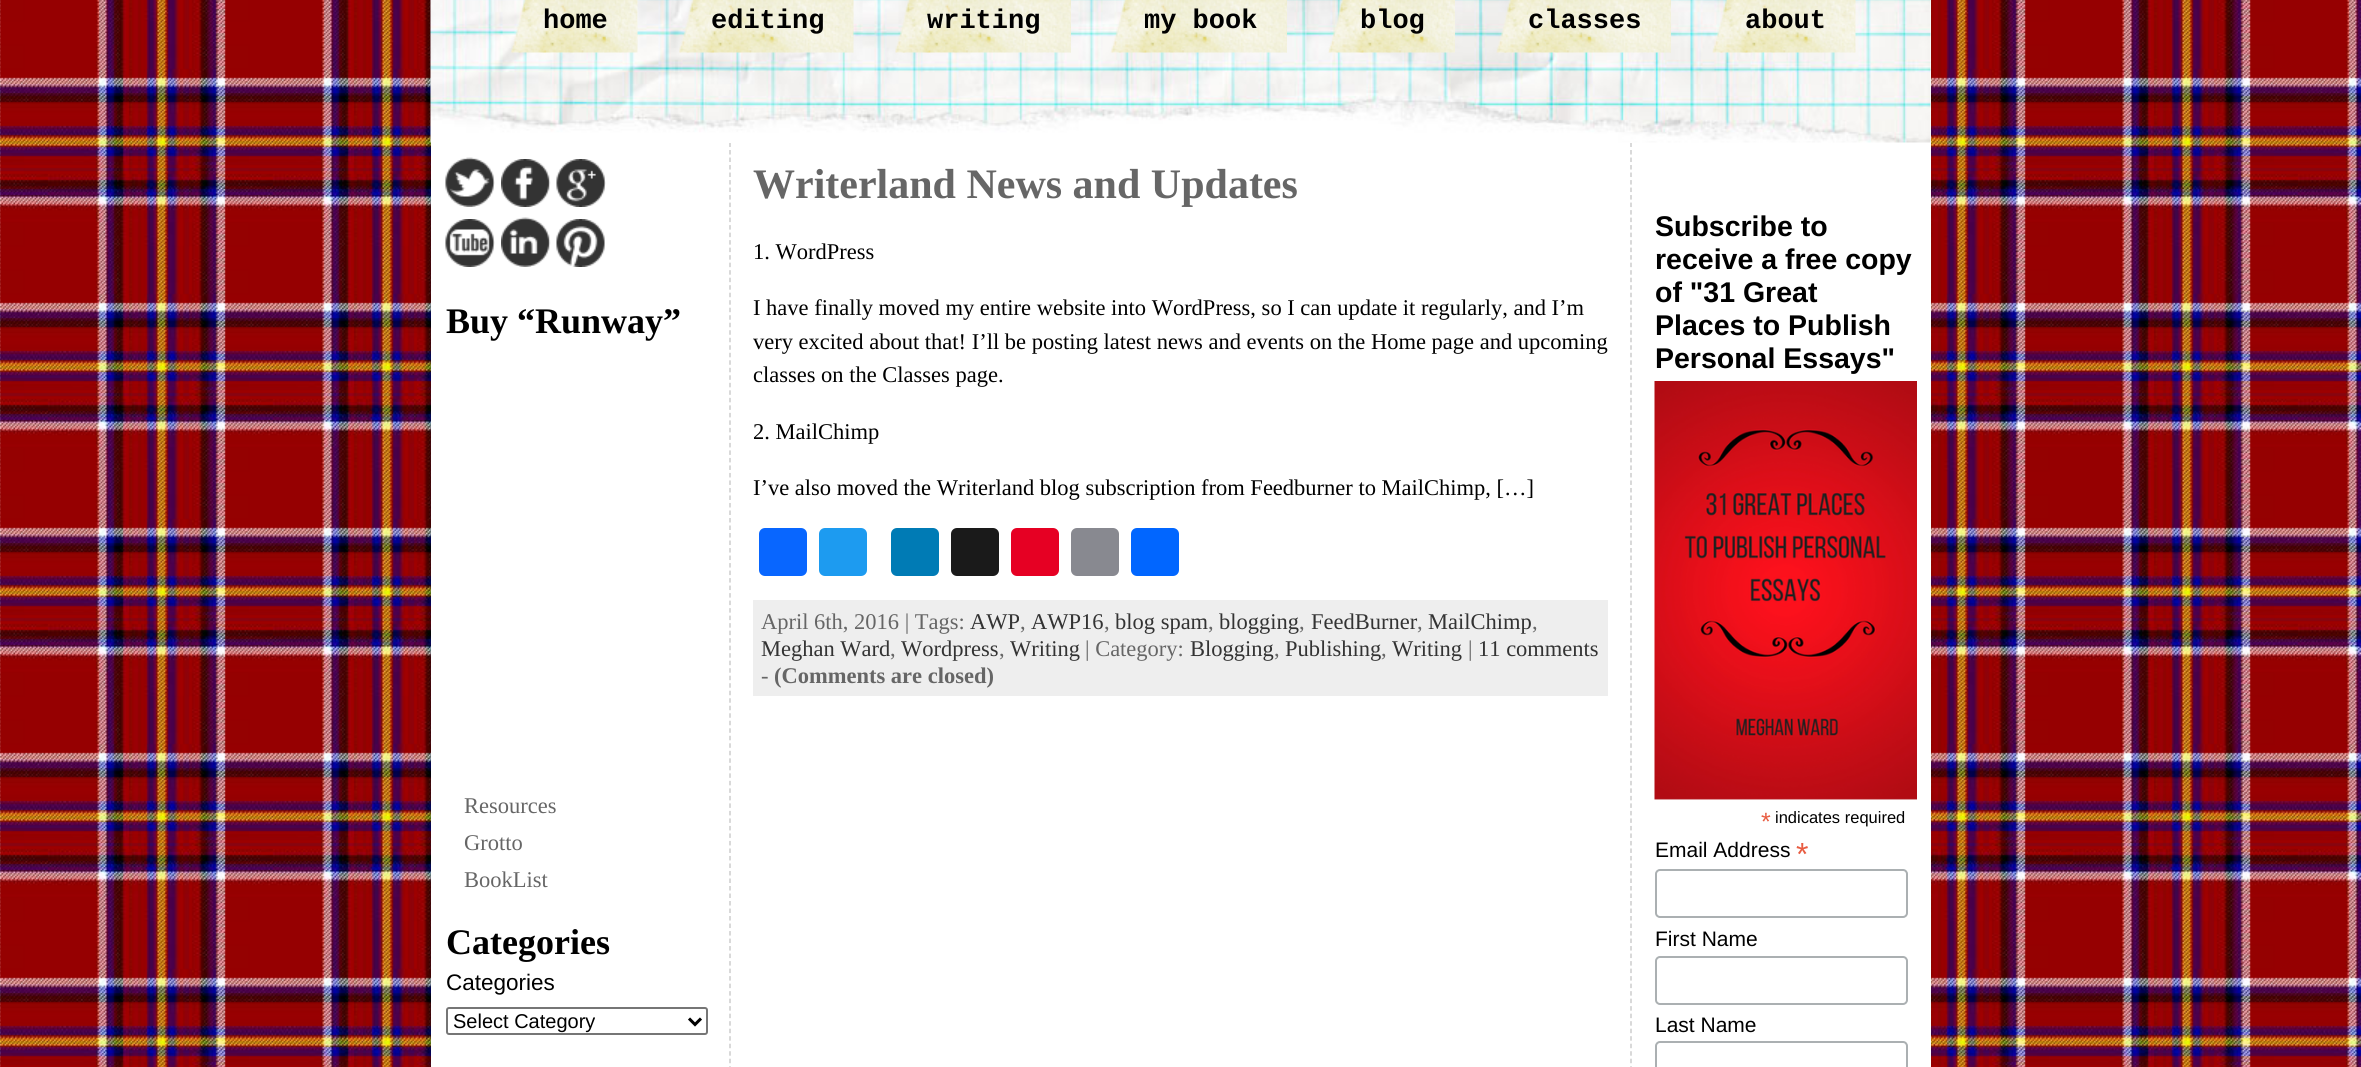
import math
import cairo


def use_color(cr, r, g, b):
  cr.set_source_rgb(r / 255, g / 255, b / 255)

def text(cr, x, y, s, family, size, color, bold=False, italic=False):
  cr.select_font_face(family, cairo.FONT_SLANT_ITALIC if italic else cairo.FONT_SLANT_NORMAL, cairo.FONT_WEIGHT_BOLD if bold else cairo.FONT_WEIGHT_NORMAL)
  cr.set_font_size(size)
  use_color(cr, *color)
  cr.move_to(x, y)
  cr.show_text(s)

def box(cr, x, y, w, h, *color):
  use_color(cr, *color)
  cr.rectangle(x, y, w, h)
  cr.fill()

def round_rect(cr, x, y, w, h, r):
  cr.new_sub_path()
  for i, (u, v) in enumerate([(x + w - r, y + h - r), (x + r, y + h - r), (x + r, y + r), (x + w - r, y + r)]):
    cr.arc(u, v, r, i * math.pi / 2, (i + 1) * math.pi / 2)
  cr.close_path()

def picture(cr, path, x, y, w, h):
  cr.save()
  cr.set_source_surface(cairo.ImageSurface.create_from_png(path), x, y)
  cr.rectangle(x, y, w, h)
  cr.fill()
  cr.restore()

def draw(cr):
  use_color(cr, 255, 255, 255)
  cr.paint()
  picture(cr, "img_01.png", 0, 0, 2361, 1067)
  box(cr, 431, 143, 1500, 924, 255, 255, 255)
  cr.new_path()
  cr.move_to(730, 142.5)
  cr.line_to(730, 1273.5)
  use_color(cr, 204, 204, 204)
  cr.set_line_width(1.5)
  cr.set_dash([4.5, 3.01])
  cr.stroke()
  cr.new_path()
  cr.move_to(1631, 142.5)
  cr.line_to(1631, 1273.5)
  cr.stroke()
  box(cr, 431, 0, 1500, 143, 255, 255, 255)
  picture(cr, "img_02.png", 430, 0, 1501, 143)
  picture(cr, "img_03.png", 511, 0, 127, 53)
  picture(cr, "img_04.png", 679, 0, 175, 53)
  picture(cr, "img_05.png", 895, 0, 176, 53)
  picture(cr, "img_06.png", 1110, 0, 177, 53)
  picture(cr, "img_07.png", 1328, 0, 127, 53)
  picture(cr, "img_08.png", 1496, 0, 175, 53)
  picture(cr, "img_09.png", 1712, 0, 144, 53)
  picture(cr, "img_10.png", 445, 157, 50, 50)
  picture(cr, "img_11.png", 501, 159, 50, 48)
  picture(cr, "img_12.png", 556, 159, 50, 48)
  picture(cr, "img_13.png", 445, 219, 50, 48)
  picture(cr, "img_14.png", 501, 217, 50, 50)
  picture(cr, "img_15.png", 556, 219, 49, 48)
  round_rect(cr, 447, 1008, 260, 26, 2)
  use_color(cr, 118, 118, 118)
  cr.set_line_width(2)
  cr.set_dash([])
  cr.stroke()
  cr.new_path()
  cr.move_to(689, 1018.5)
  cr.line_to(695, 1024.5)
  cr.line_to(701, 1018.5)
  use_color(cr, 0, 0, 0)
  cr.set_line_width(3)
  cr.stroke()
  use_color(cr, 8, 102, 255)
  round_rect(cr, 759, 528, 48, 48, 6)
  cr.fill()
  use_color(cr, 29, 155, 240)
  round_rect(cr, 819, 528, 48, 48, 6)
  cr.fill()
  use_color(cr, 0, 123, 181)
  round_rect(cr, 891, 528, 48, 48, 6)
  cr.fill()
  use_color(cr, 26, 26, 26)
  round_rect(cr, 951, 528, 48, 48, 6)
  cr.fill()
  use_color(cr, 230, 0, 35)
  round_rect(cr, 1011, 528, 48, 48, 6)
  cr.fill()
  use_color(cr, 136, 137, 144)
  round_rect(cr, 1071, 528, 48, 48, 6)
  cr.fill()
  use_color(cr, 1, 102, 255)
  round_rect(cr, 1131, 528, 48, 48, 6)
  cr.fill()
  box(cr, 753, 600, 855, 96, 238, 238, 238)
  picture(cr, "img_16.png", 1654, 381, 263, 419)
  round_rect(cr, 1656, 870, 251, 47, 4)
  use_color(cr, 171, 176, 178)
  cr.set_line_width(2)
  cr.stroke()
  round_rect(cr, 1656, 957, 251, 47, 4)
  cr.stroke()
  round_rect(cr, 1656, 1042, 251, 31, 4)
  cr.stroke()
  text(cr, 543, 28, "home", "Liberation Mono", 27, (0, 0, 0), bold=True)
  text(cr, 711, 28, "editing", "Liberation Mono", 27, (0, 0, 0), bold=True)
  text(cr, 927, 28, "writing", "Liberation Mono", 27, (0, 0, 0), bold=True)
  text(cr, 1144, 28, "my book", "Liberation Mono", 27, (0, 0, 0), bold=True)
  text(cr, 1360, 28, "blog", "Liberation Mono", 27, (0, 0, 0), bold=True)
  text(cr, 1528, 28, "classes", "Liberation Mono", 27, (0, 0, 0), bold=True)
  text(cr, 1745, 28, "about", "Liberation Mono", 27, (0, 0, 0), bold=True)
  text(cr, 446, 333, "Buy “Runway”", "Liberation Serif", 36, (0, 0, 0), bold=True)
  text(cr, 464, 813, "Resources", "Liberation Serif", 22.5, (102, 102, 102))
  text(cr, 464, 850, "Grotto", "Liberation Serif", 22.5, (102, 102, 102))
  text(cr, 464, 887, "BookList", "Liberation Serif", 22.5, (102, 102, 102))
  text(cr, 446, 954, "Categories", "Liberation Serif", 36, (0, 0, 0), bold=True)
  text(cr, 446, 990, "Categories", "Liberation Sans", 22.5, (0, 0, 0))
  text(cr, 453, 1028, "Select Category", "Liberation Sans", 20, (0, 0, 0))
  text(cr, 753, 198, "Writerland News and Updates", "Liberation Serif", 42, (102, 102, 102), bold=True)
  text(cr, 753, 259, "1. WordPress", "Liberation Serif", 22.5, (0, 0, 0))
  text(cr, 753, 315, "I have finally moved my entire website into WordPress, so I can update it regularly, and I’m", "Liberation Serif", 22.5, (0, 0, 0))
  text(cr, 753, 349, "very excited about that! I’ll be posting latest news and events on the Home page and upcoming", "Liberation Serif", 22.5, (0, 0, 0))
  text(cr, 753, 382, "classes on the Classes page.", "Liberation Serif", 22.5, (0, 0, 0))
  text(cr, 753, 439, "2. MailChimp", "Liberation Serif", 22.5, (0, 0, 0))
  text(cr, 753, 495, "I’ve also moved the Writerland blog subscription from Feedburner to MailChimp, […]", "Liberation Serif", 22.5, (0, 0, 0))
  text(cr, 761, 629, "April 6th, 2016 | Tags:", "Liberation Serif", 22.5, (102, 102, 102))
  text(cr, 970, 629, "AWP", "Liberation Serif", 22.5, (51, 51, 51))
  text(cr, 1020, 629, ",", "Liberation Serif", 22.5, (102, 102, 102))
  text(cr, 1031, 629, "AWP16", "Liberation Serif", 22.5, (51, 51, 51))
  text(cr, 1104, 629, ",", "Liberation Serif", 22.5, (102, 102, 102))
  text(cr, 1115, 629, "blog spam", "Liberation Serif", 22.5, (51, 51, 51))
  text(cr, 1208, 629, ",", "Liberation Serif", 22.5, (102, 102, 102))
  text(cr, 1219, 629, "blogging", "Liberation Serif", 22.5, (51, 51, 51))
  text(cr, 1299, 629, ",", "Liberation Serif", 22.5, (102, 102, 102))
  text(cr, 1311, 629, "FeedBurner", "Liberation Serif", 22.5, (51, 51, 51))
  text(cr, 1417, 629, ",", "Liberation Serif", 22.5, (102, 102, 102))
  text(cr, 1428, 629, "MailChimp", "Liberation Serif", 22.5, (51, 51, 51))
  text(cr, 1532, 629, ",", "Liberation Serif", 22.5, (102, 102, 102))
  text(cr, 761, 656, "Meghan Ward", "Liberation Serif", 22.5, (51, 51, 51))
  text(cr, 890, 656, ",", "Liberation Serif", 22.5, (102, 102, 102))
  text(cr, 901, 656, "Wordpress", "Liberation Serif", 22.5, (51, 51, 51))
  text(cr, 999, 656, ",", "Liberation Serif", 22.5, (102, 102, 102))
  text(cr, 1010, 656, "Writing", "Liberation Serif", 22.5, (51, 51, 51))
  text(cr, 1085, 656, "| Category:", "Liberation Serif", 22.5, (102, 102, 102))
  text(cr, 1190, 656, "Blogging", "Liberation Serif", 22.5, (51, 51, 51))
  text(cr, 1274, 656, ",", "Liberation Serif", 22.5, (102, 102, 102))
  text(cr, 1285, 656, "Publishing", "Liberation Serif", 22.5, (51, 51, 51))
  text(cr, 1381, 656, ",", "Liberation Serif", 22.5, (102, 102, 102))
  text(cr, 1392, 656, "Writing", "Liberation Serif", 22.5, (51, 51, 51))
  text(cr, 1468, 656, "|", "Liberation Serif", 22.5, (102, 102, 102))
  text(cr, 1478, 656, "11 comments", "Liberation Serif", 22.5, (51, 51, 51))
  text(cr, 761, 683, "-", "Liberation Serif", 22.5, (102, 102, 102))
  text(cr, 774, 683, "(Comments are closed)", "Liberation Serif", 22.5, (102, 102, 102), bold=True)
  text(cr, 1655, 236, "Subscribe to", "Liberation Sans", 28.5, (0, 0, 0), bold=True)
  text(cr, 1655, 269, "receive a free copy", "Liberation Sans", 28.5, (0, 0, 0), bold=True)
  text(cr, 1655, 302, "of \"31 Great", "Liberation Sans", 28.5, (0, 0, 0), bold=True)
  text(cr, 1655, 335, "Places to Publish", "Liberation Sans", 28.5, (0, 0, 0), bold=True)
  text(cr, 1655, 368, "Personal Essays\"", "Liberation Sans", 28.5, (0, 0, 0), bold=True)
  text(cr, 1761, 830, "*", "Liberation Sans", 25, (232, 92, 65))
  text(cr, 1775, 823, "indicates required", "Liberation Sans", 16.5, (0, 0, 0))
  text(cr, 1655, 857, "Email Address", "Liberation Sans", 21, (0, 0, 0))
  text(cr, 1796, 865, "*", "Liberation Sans", 32, (232, 92, 65))
  text(cr, 1655, 946, "First Name", "Liberation Sans", 21, (0, 0, 0))
  text(cr, 1655, 1032, "Last Name", "Liberation Sans", 21, (0, 0, 0))


surface = cairo.ImageSurface(cairo.FORMAT_RGB24, 2361, 1067)
cr = cairo.Context(surface)
options = cairo.FontOptions()
options.set_hint_metrics(cairo.HINT_METRICS_OFF)
options.set_hint_style(cairo.HINT_STYLE_NONE)
cr.set_font_options(options)
cr.set_miter_limit(4)
draw(cr)
surface.write_to_png("out.png")
